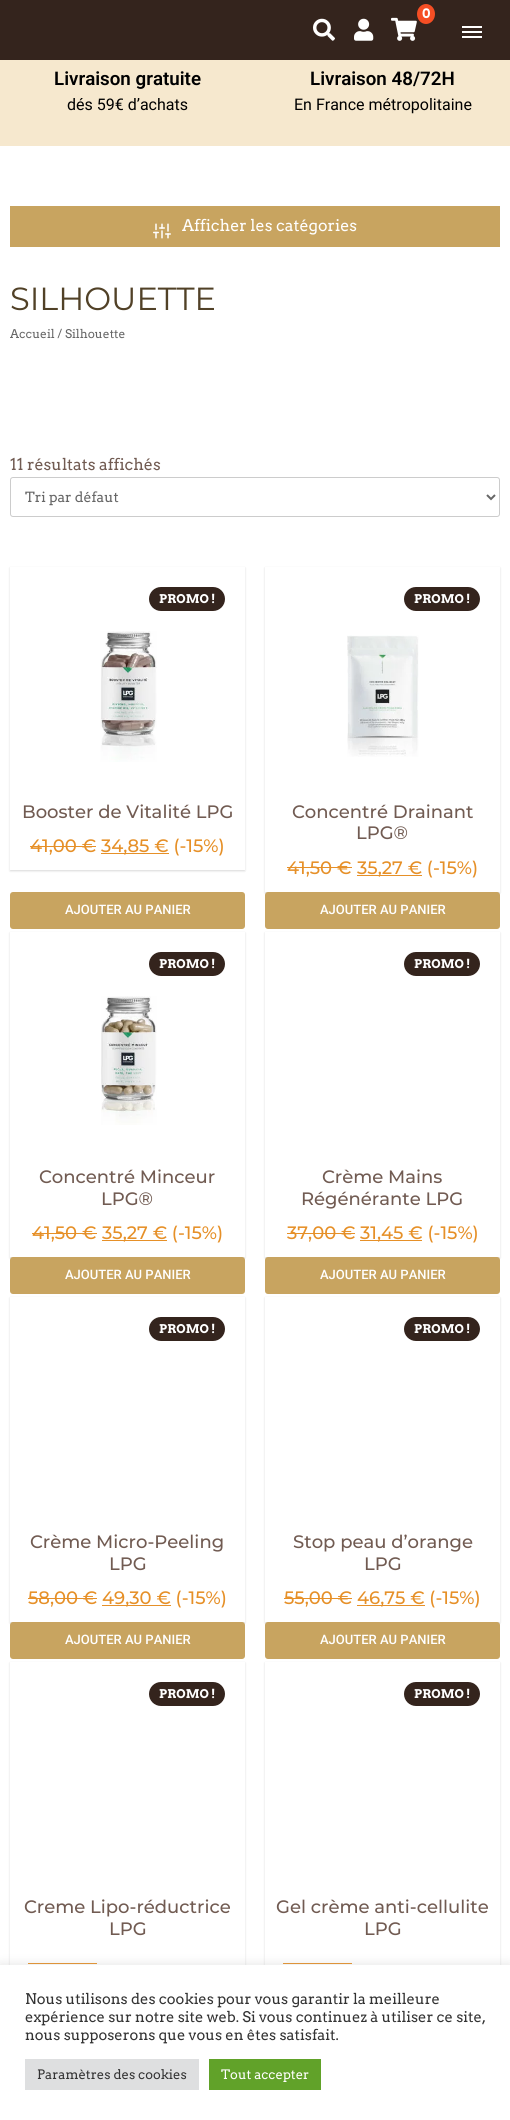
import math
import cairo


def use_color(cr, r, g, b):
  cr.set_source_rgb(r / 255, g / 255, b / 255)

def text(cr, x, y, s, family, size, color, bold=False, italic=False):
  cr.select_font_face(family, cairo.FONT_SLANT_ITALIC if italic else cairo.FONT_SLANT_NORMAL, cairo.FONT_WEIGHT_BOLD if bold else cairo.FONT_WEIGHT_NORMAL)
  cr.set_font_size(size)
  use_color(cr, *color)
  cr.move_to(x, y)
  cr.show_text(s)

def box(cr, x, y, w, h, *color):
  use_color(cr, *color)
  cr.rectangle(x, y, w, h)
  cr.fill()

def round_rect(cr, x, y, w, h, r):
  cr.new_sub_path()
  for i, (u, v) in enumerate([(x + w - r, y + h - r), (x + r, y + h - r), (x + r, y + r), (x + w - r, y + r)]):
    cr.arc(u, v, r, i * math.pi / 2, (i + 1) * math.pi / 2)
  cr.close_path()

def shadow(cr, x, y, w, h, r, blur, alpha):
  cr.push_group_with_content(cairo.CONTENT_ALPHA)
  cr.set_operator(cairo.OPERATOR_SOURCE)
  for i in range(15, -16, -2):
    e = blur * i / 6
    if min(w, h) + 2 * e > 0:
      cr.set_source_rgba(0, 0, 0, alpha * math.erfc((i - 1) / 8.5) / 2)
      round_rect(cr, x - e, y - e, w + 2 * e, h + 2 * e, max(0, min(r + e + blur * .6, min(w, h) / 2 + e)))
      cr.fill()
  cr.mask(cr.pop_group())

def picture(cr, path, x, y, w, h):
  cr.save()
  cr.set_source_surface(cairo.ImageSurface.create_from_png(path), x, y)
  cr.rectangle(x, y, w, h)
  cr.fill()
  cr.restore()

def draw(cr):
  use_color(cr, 255, 255, 255)
  cr.paint()
  box(cr, 0, 0, 510, 60, 52, 36, 29)
  use_color(cr, 245, 78, 36)
  cr.new_path()
  cr.move_to(426, 4)
  cr.curve_to(431, 4, 435, 8.5, 435, 14)
  cr.curve_to(435, 19.5, 431, 24, 426, 24)
  cr.curve_to(421, 24, 417, 19.5, 417, 14)
  cr.curve_to(417, 8.5, 421, 4, 426, 4)
  cr.close_path()
  cr.fill()
  picture(cr, "img_01.png", 391, 17, 26, 24)
  picture(cr, "img_02.png", 313, 18, 22, 23)
  picture(cr, "img_03.png", 354, 18, 20, 23)
  box(cr, 462, 31, 20, 2, 255, 255, 255)
  box(cr, 462, 26, 20, 2, 255, 255, 255)
  box(cr, 462, 36, 20, 2, 255, 255, 255)
  box(cr, 0, 60, 510, 86, 246, 232, 206)
  box(cr, 10, 206, 490, 41, 200, 164, 96)
  picture(cr, "img_04.png", 153, 223, 18, 16)
  round_rect(cr, 10.5, 477.5, 489, 39, 2.5)
  use_color(cr, 204, 204, 204)
  cr.set_line_width(1)
  cr.stroke()
  cr.new_path()
  cr.move_to(487, 495)
  cr.line_to(491, 499)
  cr.line_to(495, 495)
  use_color(cr, 102, 102, 102)
  cr.set_line_width(2)
  cr.stroke()
  cr.save()
  cr.set_fill_rule(cairo.FILL_RULE_EVEN_ODD)
  cr.new_path()
  cr.move_to(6, 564)
  cr.line_to(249, 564)
  cr.line_to(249, 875)
  cr.line_to(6, 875)
  cr.close_path()
  cr.move_to(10, 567)
  cr.line_to(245, 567)
  cr.line_to(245, 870)
  cr.line_to(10, 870)
  cr.close_path()
  cr.clip()
  use_color(cr, 0, 0, 0)
  shadow(cr, 10, 568, 235, 303, 0, 1, 0.15)
  cr.restore()
  use_color(cr, 52, 36, 29)
  round_rect(cr, 149, 587, 76, 24, 12)
  cr.fill()
  picture(cr, "img_05.png", 100, 631, 57, 131)
  box(cr, 30, 846, 66, 1, 230, 144, 40)
  box(cr, 101, 853, 68, 1, 230, 144, 40)
  use_color(cr, 200, 164, 96)
  round_rect(cr, 11, 893, 233, 35, 2)
  cr.fill_preserve()
  cr.stroke()
  cr.save()
  cr.set_fill_rule(cairo.FILL_RULE_EVEN_ODD)
  cr.new_path()
  cr.move_to(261, 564)
  cr.line_to(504, 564)
  cr.line_to(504, 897)
  cr.line_to(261, 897)
  cr.close_path()
  cr.move_to(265, 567)
  cr.line_to(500, 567)
  cr.line_to(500, 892)
  cr.line_to(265, 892)
  cr.close_path()
  cr.clip()
  use_color(cr, 0, 0, 0)
  shadow(cr, 265, 568, 235, 325, 0, 1, 0.15)
  cr.restore()
  use_color(cr, 52, 36, 29)
  round_rect(cr, 404, 587, 76, 24, 12)
  cr.fill()
  picture(cr, "img_06.png", 347, 635, 72, 122)
  box(cr, 287, 867, 65, 1, 230, 144, 40)
  box(cr, 357, 875, 65, 1, 230, 144, 40)
  use_color(cr, 200, 164, 96)
  round_rect(cr, 266, 893, 233, 35, 2)
  cr.fill_preserve()
  cr.stroke()
  cr.save()
  cr.set_fill_rule(cairo.FILL_RULE_EVEN_ODD)
  cr.new_path()
  cr.move_to(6, 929)
  cr.line_to(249, 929)
  cr.line_to(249, 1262)
  cr.line_to(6, 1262)
  cr.close_path()
  cr.move_to(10, 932)
  cr.line_to(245, 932)
  cr.line_to(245, 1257)
  cr.line_to(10, 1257)
  cr.close_path()
  cr.clip()
  use_color(cr, 0, 0, 0)
  shadow(cr, 10, 933, 235, 325, 0, 1, 0.15)
  cr.restore()
  use_color(cr, 52, 36, 29)
  round_rect(cr, 149, 952, 76, 24, 12)
  cr.fill()
  picture(cr, "img_07.png", 101, 996, 56, 129)
  box(cr, 32, 1233, 65, 1, 230, 144, 40)
  box(cr, 102, 1240, 65, 1, 230, 144, 40)
  use_color(cr, 200, 164, 96)
  round_rect(cr, 11, 1258, 233, 35, 2)
  cr.fill_preserve()
  cr.stroke()
  cr.save()
  cr.set_fill_rule(cairo.FILL_RULE_EVEN_ODD)
  cr.new_path()
  cr.move_to(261, 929)
  cr.line_to(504, 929)
  cr.line_to(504, 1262)
  cr.line_to(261, 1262)
  cr.close_path()
  cr.move_to(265, 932)
  cr.line_to(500, 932)
  cr.line_to(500, 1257)
  cr.line_to(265, 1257)
  cr.close_path()
  cr.clip()
  use_color(cr, 0, 0, 0)
  shadow(cr, 265, 933, 235, 325, 0, 1, 0.15)
  cr.restore()
  use_color(cr, 52, 36, 29)
  round_rect(cr, 404, 952, 76, 24, 12)
  cr.fill()
  box(cr, 287, 1233, 68, 1, 230, 144, 40)
  box(cr, 360, 1240, 62, 1, 230, 144, 40)
  use_color(cr, 200, 164, 96)
  round_rect(cr, 266, 1258, 233, 35, 2)
  cr.fill_preserve()
  cr.stroke()
  cr.save()
  cr.set_fill_rule(cairo.FILL_RULE_EVEN_ODD)
  cr.new_path()
  cr.move_to(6, 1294)
  cr.line_to(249, 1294)
  cr.line_to(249, 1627)
  cr.line_to(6, 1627)
  cr.close_path()
  cr.move_to(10, 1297)
  cr.line_to(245, 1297)
  cr.line_to(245, 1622)
  cr.line_to(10, 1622)
  cr.close_path()
  cr.clip()
  use_color(cr, 0, 0, 0)
  shadow(cr, 10, 1298, 235, 325, 0, 1, 0.15)
  cr.restore()
  use_color(cr, 52, 36, 29)
  round_rect(cr, 149, 1317, 76, 24, 12)
  cr.fill()
  box(cr, 28, 1598, 69, 1, 230, 144, 40)
  box(cr, 102, 1605, 69, 1, 230, 144, 40)
  use_color(cr, 200, 164, 96)
  round_rect(cr, 11, 1623, 233, 35, 2)
  cr.fill_preserve()
  cr.stroke()
  cr.save()
  cr.set_fill_rule(cairo.FILL_RULE_EVEN_ODD)
  cr.new_path()
  cr.move_to(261, 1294)
  cr.line_to(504, 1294)
  cr.line_to(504, 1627)
  cr.line_to(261, 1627)
  cr.close_path()
  cr.move_to(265, 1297)
  cr.line_to(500, 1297)
  cr.line_to(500, 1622)
  cr.line_to(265, 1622)
  cr.close_path()
  cr.clip()
  use_color(cr, 0, 0, 0)
  shadow(cr, 265, 1298, 235, 325, 0, 1, 0.15)
  cr.restore()
  use_color(cr, 52, 36, 29)
  round_rect(cr, 404, 1317, 76, 24, 12)
  cr.fill()
  box(cr, 284, 1598, 68, 1, 230, 144, 40)
  box(cr, 357, 1605, 68, 1, 230, 144, 40)
  use_color(cr, 200, 164, 96)
  round_rect(cr, 266, 1623, 233, 35, 2)
  cr.fill_preserve()
  cr.stroke()
  cr.save()
  cr.set_fill_rule(cairo.FILL_RULE_EVEN_ODD)
  cr.new_path()
  cr.move_to(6, 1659)
  cr.line_to(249, 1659)
  cr.line_to(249, 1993)
  cr.line_to(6, 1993)
  cr.close_path()
  cr.move_to(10, 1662)
  cr.line_to(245, 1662)
  cr.line_to(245, 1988)
  cr.line_to(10, 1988)
  cr.close_path()
  cr.clip()
  use_color(cr, 0, 0, 0)
  shadow(cr, 10, 1663, 235, 326, 0, 1, 0.15)
  cr.restore()
  use_color(cr, 52, 36, 29)
  round_rect(cr, 149, 1682, 76, 24, 12)
  cr.fill()
  box(cr, 28, 1963, 69, 1, 230, 144, 40)
  cr.save()
  cr.set_fill_rule(cairo.FILL_RULE_EVEN_ODD)
  cr.new_path()
  cr.move_to(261, 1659)
  cr.line_to(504, 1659)
  cr.line_to(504, 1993)
  cr.line_to(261, 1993)
  cr.close_path()
  cr.move_to(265, 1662)
  cr.line_to(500, 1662)
  cr.line_to(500, 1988)
  cr.line_to(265, 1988)
  cr.close_path()
  cr.clip()
  use_color(cr, 0, 0, 0)
  shadow(cr, 265, 1663, 235, 326, 0, 1, 0.15)
  cr.restore()
  use_color(cr, 52, 36, 29)
  round_rect(cr, 404, 1682, 76, 24, 12)
  cr.fill()
  box(cr, 283, 1963, 69, 1, 230, 144, 40)
  use_color(cr, 172, 171, 171)
  shadow(cr, 0, 1964, 510, 155, 0, 5, 0.3)
  box(cr, 0, 1965, 510, 155, 255, 255, 255)
  box(cr, 25, 2059, 174, 31, 222, 223, 224)
  box(cr, 209, 2059, 112, 31, 97, 162, 41)
  text(cr, 422, 18, "0", "Arvo", 13, (255, 255, 255), bold=True)
  text(cr, 54, 85, "Livraison gratuite", "Roboto SemiBold", 18.75, (0, 0, 0))
  text(cr, 67, 110, "dés 59€ d’achats", "Roboto", 16, (0, 0, 0))
  text(cr, 310, 85, "Livraison 48/72H", "Roboto SemiBold", 18.75, (0, 0, 0))
  text(cr, 294, 110, "En France métropolitaine", "Roboto", 16, (0, 0, 0))
  text(cr, 182, 231, "Afficher les catégories", "Arvo", 16, (255, 255, 255))
  text(cr, 10, 310, "SILHOUETTE", "Montserrat", 32, (81, 65, 39))
  text(cr, 10, 338, "Accueil / Silhouette", "Arvo", 12, (102, 102, 102))
  text(cr, 10, 470, "11 résultats affichés", "Arvo", 16, (113, 91, 82))
  text(cr, 25, 502, "Tri par défaut", "Arvo", 14, (102, 102, 102))
  text(cr, 159, 603, "PROMO !", "Arvo", 12, (255, 255, 255), bold=True)
  text(cr, 22, 818, "Booster de Vitalité LPG", "Montserrat Medium", 18, (113, 91, 82))
  text(cr, 30, 852, "41,00 €", "Montserrat Medium", 18, (230, 144, 40))
  text(cr, 101, 852, "34,85 € (-15%)", "Montserrat Medium", 18, (230, 144, 40))
  text(cr, 65, 914, "AJOUTER AU PANIER", "Roboto Medium", 13, (255, 255, 255))
  text(cr, 414, 603, "PROMO !", "Arvo", 12, (255, 255, 255), bold=True)
  text(cr, 292, 818, "Concentré Drainant", "Montserrat Medium", 18, (113, 91, 82))
  text(cr, 356, 839, "LPG®", "Montserrat Medium", 18, (113, 91, 82))
  text(cr, 287, 874, "41,50 €", "Montserrat Medium", 18, (230, 144, 40))
  text(cr, 357, 874, "35,27 € (-15%)", "Montserrat Medium", 18, (230, 144, 40))
  text(cr, 320, 914, "AJOUTER AU PANIER", "Roboto Medium", 13, (255, 255, 255))
  text(cr, 159, 968, "PROMO !", "Arvo", 12, (255, 255, 255), bold=True)
  text(cr, 39, 1183, "Concentré Minceur", "Montserrat Medium", 18, (113, 91, 82))
  text(cr, 101, 1205, "LPG®", "Montserrat Medium", 18, (113, 91, 82))
  text(cr, 32, 1239, "41,50 €", "Montserrat Medium", 18, (230, 144, 40))
  text(cr, 102, 1239, "35,27 € (-15%)", "Montserrat Medium", 18, (230, 144, 40))
  text(cr, 65, 1279, "AJOUTER AU PANIER", "Roboto Medium", 13, (255, 255, 255))
  text(cr, 414, 968, "PROMO !", "Arvo", 12, (255, 255, 255), bold=True)
  text(cr, 322, 1183, "Crème Mains", "Montserrat Medium", 18, (113, 91, 82))
  text(cr, 301, 1205, "Régénérante LPG", "Montserrat Medium", 18, (113, 91, 82))
  text(cr, 287, 1239, "37,00 €", "Montserrat Medium", 18, (230, 144, 40))
  text(cr, 360, 1239, "31,45 € (-15%)", "Montserrat Medium", 18, (230, 144, 40))
  text(cr, 320, 1279, "AJOUTER AU PANIER", "Roboto Medium", 13, (255, 255, 255))
  text(cr, 159, 1333, "PROMO !", "Arvo", 12, (255, 255, 255), bold=True)
  text(cr, 30, 1548, "Crème Micro-Peeling", "Montserrat Medium", 18, (113, 91, 82))
  text(cr, 109, 1570, "LPG", "Montserrat Medium", 18, (113, 91, 82))
  text(cr, 28, 1604, "58,00 €", "Montserrat Medium", 18, (230, 144, 40))
  text(cr, 102, 1604, "49,30 € (-15%)", "Montserrat Medium", 18, (230, 144, 40))
  text(cr, 65, 1644, "AJOUTER AU PANIER", "Roboto Medium", 13, (255, 255, 255))
  text(cr, 414, 1333, "PROMO !", "Arvo", 12, (255, 255, 255), bold=True)
  text(cr, 293, 1548, "Stop peau d’orange", "Montserrat Medium", 18, (113, 91, 82))
  text(cr, 364, 1570, "LPG", "Montserrat Medium", 18, (113, 91, 82))
  text(cr, 284, 1604, "55,00 €", "Montserrat Medium", 18, (230, 144, 40))
  text(cr, 357, 1604, "46,75 € (-15%)", "Montserrat Medium", 18, (230, 144, 40))
  text(cr, 320, 1644, "AJOUTER AU PANIER", "Roboto Medium", 13, (255, 255, 255))
  text(cr, 159, 1698, "PROMO !", "Arvo", 12, (255, 255, 255), bold=True)
  text(cr, 24, 1913, "Creme Lipo-réductrice", "Montserrat Medium", 18, (113, 91, 82))
  text(cr, 109, 1935, "LPG", "Montserrat Medium", 18, (113, 91, 82))
  text(cr, 414, 1698, "PROMO !", "Arvo", 12, (255, 255, 255), bold=True)
  text(cr, 276, 1913, "Gel crème anti-cellulite", "Montserrat Medium", 18, (113, 91, 82))
  text(cr, 364, 1935, "LPG", "Montserrat Medium", 18, (113, 91, 82))
  text(cr, 25, 2004, "Nous utilisons des cookies pour vous garantir la meilleure", "Arvo", 14.7, (51, 51, 51))
  text(cr, 25, 2022, "expérience sur notre site web. Si vous continuez à utiliser ce site,", "Arvo", 14.7, (51, 51, 51))
  text(cr, 25, 2040, "nous supposerons que vous en êtes satisfait.", "Arvo", 14.7, (51, 51, 51))
  text(cr, 37, 2079, "Paramètres des cookies", "Arvo", 13, (51, 51, 51))
  text(cr, 221, 2079, "Tout accepter", "Arvo", 13, (255, 255, 255))


surface = cairo.ImageSurface(cairo.FORMAT_RGB24, 510, 2120)
cr = cairo.Context(surface)
options = cairo.FontOptions()
options.set_hint_metrics(cairo.HINT_METRICS_OFF)
options.set_hint_style(cairo.HINT_STYLE_NONE)
cr.set_font_options(options)
cr.set_miter_limit(4)
draw(cr)
surface.write_to_png("out.png")
